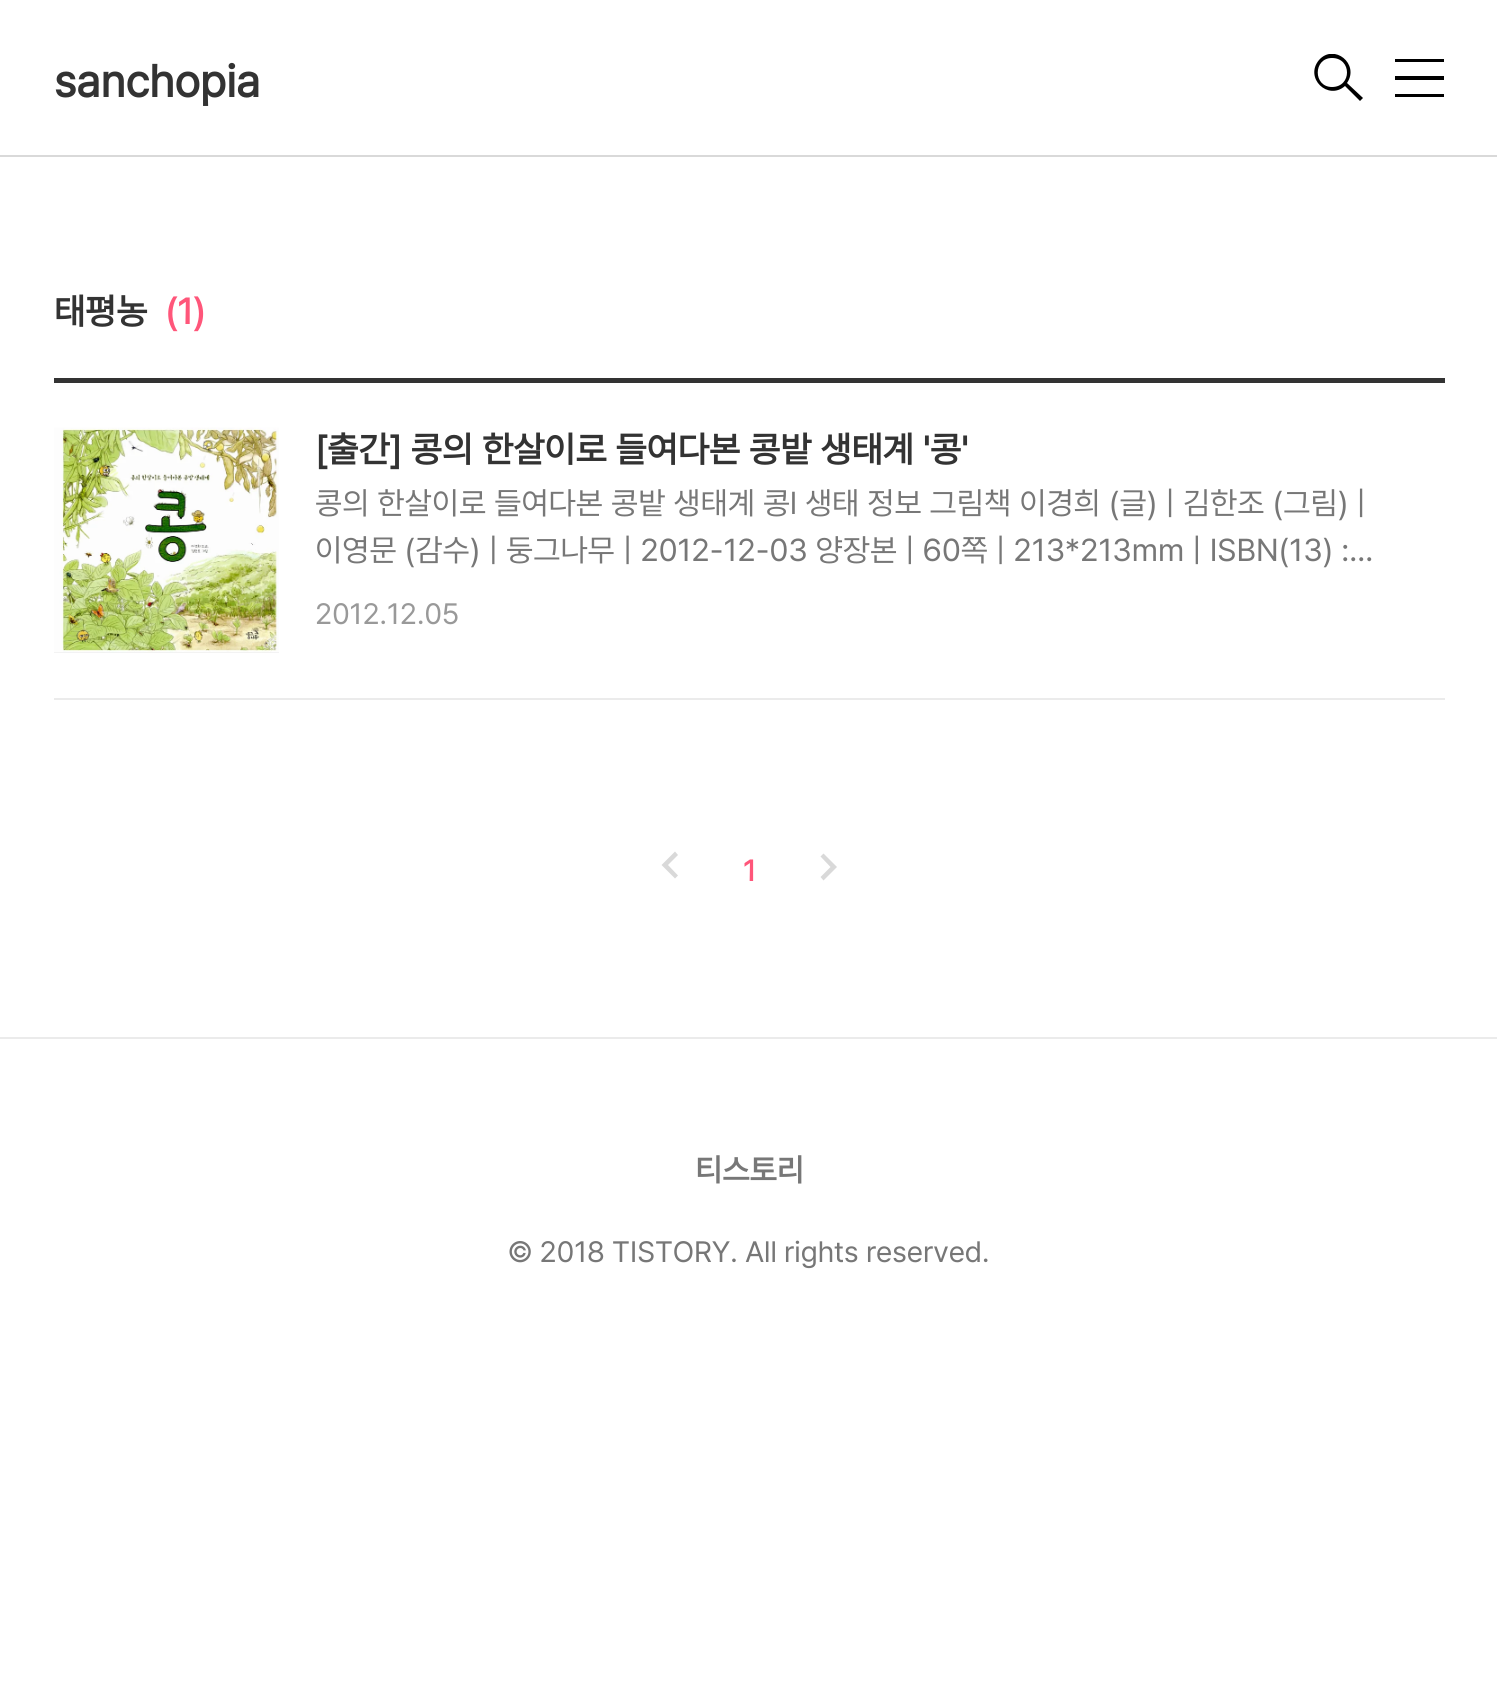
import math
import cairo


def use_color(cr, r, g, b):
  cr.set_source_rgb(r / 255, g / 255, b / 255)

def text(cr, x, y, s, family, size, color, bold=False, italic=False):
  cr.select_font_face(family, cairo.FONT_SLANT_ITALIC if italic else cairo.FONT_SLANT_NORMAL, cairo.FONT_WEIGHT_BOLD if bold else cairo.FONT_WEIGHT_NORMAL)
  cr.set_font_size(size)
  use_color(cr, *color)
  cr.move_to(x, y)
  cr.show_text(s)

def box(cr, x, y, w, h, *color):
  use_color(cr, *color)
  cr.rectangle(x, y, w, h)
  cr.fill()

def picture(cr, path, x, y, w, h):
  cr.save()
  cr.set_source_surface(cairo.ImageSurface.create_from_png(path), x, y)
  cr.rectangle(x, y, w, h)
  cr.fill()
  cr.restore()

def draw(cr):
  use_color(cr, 255, 255, 255)
  cr.paint()
  box(cr, 0, 155, 1497, 2, 217, 217, 217)
  cr.save()
  cr.rectangle(1314, 54, 50, 47)
  cr.clip()
  use_color(cr, 0, 0, 0)
  cr.set_fill_rule(cairo.FILL_RULE_EVEN_ODD)
  cr.new_path()
  cr.move_to(1363, 98)
  cr.line_to(1360, 101)
  cr.line_to(1345, 86)
  cr.curve_to(1328, 101, 1304, 78, 1319, 60)
  cr.curve_to(1334, 43, 1360, 64, 1347, 83)
  cr.close_path()
  cr.move_to(1332, 58)
  cr.curve_to(1313, 58, 1313, 87, 1332, 87)
  cr.curve_to(1352, 87, 1352, 58, 1332, 58)
  cr.close_path()
  cr.fill()
  cr.restore()
  cr.save()
  cr.rectangle(1395, 59, 50, 38)
  cr.clip()
  use_color(cr, 0, 0, 0)
  cr.set_fill_rule(cairo.FILL_RULE_EVEN_ODD)
  cr.new_path()
  cr.move_to(1395, 58)
  cr.line_to(1444, 58)
  cr.line_to(1444, 62)
  cr.line_to(1395, 62)
  cr.close_path()
  cr.move_to(1395, 76)
  cr.line_to(1444, 76)
  cr.line_to(1444, 80)
  cr.line_to(1395, 80)
  cr.close_path()
  cr.move_to(1395, 94)
  cr.line_to(1444, 94)
  cr.line_to(1444, 97)
  cr.line_to(1395, 97)
  cr.close_path()
  cr.fill()
  cr.restore()
  box(cr, 54, 378, 1391, 5, 51, 51, 51)
  box(cr, 54, 698, 1391, 2, 235, 235, 235)
  box(cr, 54, 652, 225, 1, 233, 233, 233)
  picture(cr, "img_01.png", 54, 427, 225, 226)
  use_color(cr, 217, 217, 217)
  cr.new_path()
  cr.move_to(678, 855)
  cr.line_to(675, 851.5)
  cr.line_to(661.5, 865)
  cr.line_to(675, 878.5)
  cr.line_to(678, 875.5)
  cr.line_to(668, 865)
  cr.close_path()
  cr.fill()
  cr.new_path()
  cr.move_to(820.5, 877)
  cr.line_to(830.5, 867)
  cr.line_to(820.5, 856.5)
  cr.line_to(823.5, 853.5)
  cr.line_to(837, 867)
  cr.line_to(823.5, 880.5)
  cr.close_path()
  cr.fill()
  box(cr, 0, 1037, 1497, 2, 235, 235, 235)
  text(cr, 54, 97, "sanchopia", "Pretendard", 45, (51, 51, 51), bold=True)
  text(cr, 54, 324, "태평농", "Pretendard", 36, (51, 51, 51), bold=True)
  text(cr, 165, 324, "(1)", "Pretendard", 36, (255, 86, 122), bold=True)
  text(cr, 315, 462, "[출간] 콩의 한살이로 들여다본 콩밭 생태계 '콩'", "Pretendard", 36, (51, 51, 51), bold=True)
  text(cr, 315, 514, "콩의 한살이로 들여다본 콩밭 생태계 콩l 생태 정보 그림책 이경희 (글) | 김한조 (그림) |", "Pretendard", 31.5, (119, 119, 119))
  text(cr, 315, 561, "이영문 (감수) | 둥그나무 | 2012-12-03 양장본 | 60쪽 | 213*213mm | ISBN(13) :…", "Pretendard", 31.5, (119, 119, 119))
  text(cr, 315, 624, "2012.12.05", "Pretendard", 29.25, (153, 153, 153))
  text(cr, 743, 881, "1", "Pretendard", 29.25, (255, 86, 122), bold=True)
  text(cr, 695, 1181, "티스토리", "Pretendard", 31.5, (119, 119, 119), bold=True)
  text(cr, 508, 1262, "© 2018 TISTORY. All rights reserved.", "Pretendard", 29.25, (119, 119, 119))


surface = cairo.ImageSurface(cairo.FORMAT_RGB24, 1497, 1707)
cr = cairo.Context(surface)
options = cairo.FontOptions()
options.set_hint_metrics(cairo.HINT_METRICS_OFF)
options.set_hint_style(cairo.HINT_STYLE_NONE)
cr.set_font_options(options)
cr.set_miter_limit(4)
draw(cr)
surface.write_to_png("out.png")
